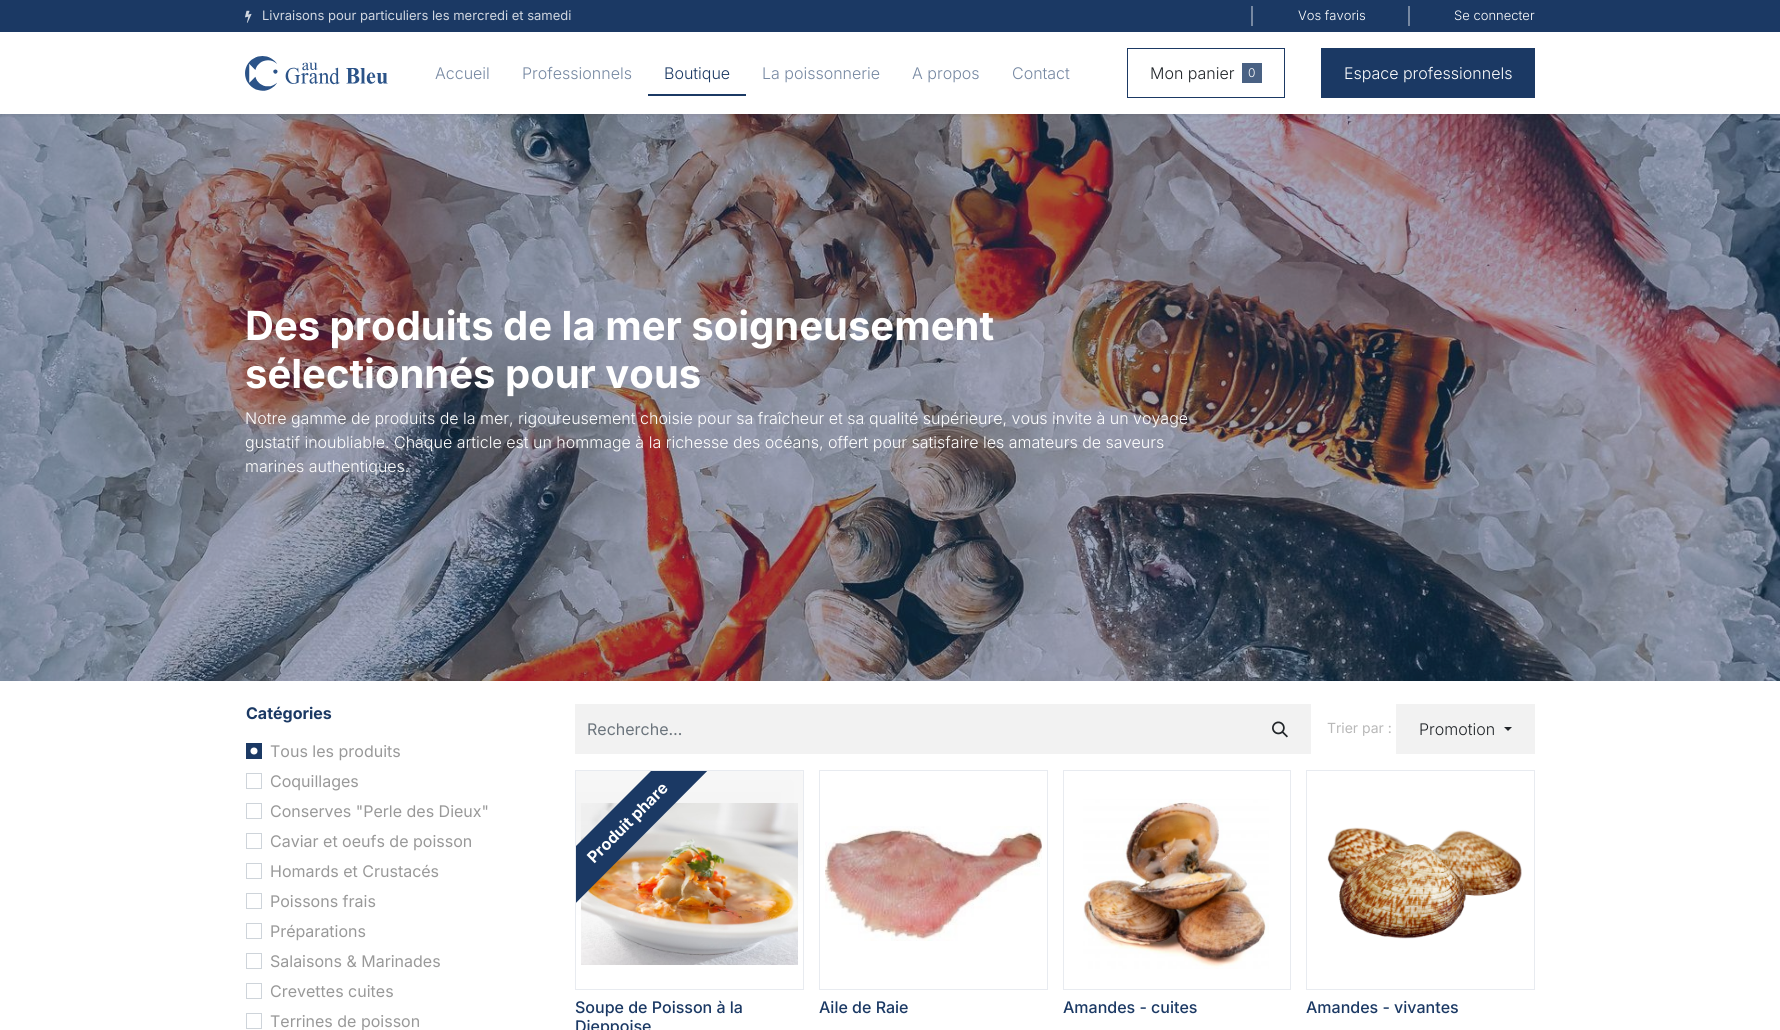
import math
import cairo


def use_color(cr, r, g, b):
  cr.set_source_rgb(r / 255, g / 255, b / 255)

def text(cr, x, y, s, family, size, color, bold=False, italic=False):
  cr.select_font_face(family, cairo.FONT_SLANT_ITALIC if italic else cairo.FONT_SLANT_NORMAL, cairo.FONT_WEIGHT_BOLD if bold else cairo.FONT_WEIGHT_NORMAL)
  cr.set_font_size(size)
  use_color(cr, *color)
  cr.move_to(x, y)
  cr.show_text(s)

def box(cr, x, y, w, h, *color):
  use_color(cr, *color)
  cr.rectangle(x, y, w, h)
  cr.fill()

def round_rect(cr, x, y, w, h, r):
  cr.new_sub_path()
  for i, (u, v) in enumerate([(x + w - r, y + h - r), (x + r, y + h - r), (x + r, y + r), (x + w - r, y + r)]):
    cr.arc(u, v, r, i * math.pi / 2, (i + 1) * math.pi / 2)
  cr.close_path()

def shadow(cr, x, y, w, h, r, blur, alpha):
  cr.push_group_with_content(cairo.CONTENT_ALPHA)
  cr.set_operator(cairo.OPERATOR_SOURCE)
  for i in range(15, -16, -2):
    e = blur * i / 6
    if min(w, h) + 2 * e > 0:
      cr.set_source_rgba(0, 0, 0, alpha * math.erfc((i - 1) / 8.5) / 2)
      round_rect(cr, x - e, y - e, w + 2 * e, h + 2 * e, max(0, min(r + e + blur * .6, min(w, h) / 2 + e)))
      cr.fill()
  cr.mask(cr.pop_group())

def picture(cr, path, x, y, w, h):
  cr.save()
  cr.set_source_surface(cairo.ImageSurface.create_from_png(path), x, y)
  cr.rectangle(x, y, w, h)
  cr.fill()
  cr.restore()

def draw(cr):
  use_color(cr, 255, 255, 255)
  cr.paint()
  picture(cr, "img_03.png", 0, 114, 1780, 567)
  cr.save()
  cr.rectangle(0, 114, 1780, 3)
  cr.clip()
  use_color(cr, 0, 0, 0)
  shadow(cr, 0, 2, 1780, 114, 0, 2, 0.07)
  cr.restore()
  box(cr, 0, 0, 1780, 32, 27, 57, 100)
  picture(cr, "img_01.png", 245, 10, 7, 13)
  box(cr, 1251, 6, 2, 20, 118, 136, 162)
  box(cr, 1408, 6, 2, 20, 118, 136, 162)
  picture(cr, "img_02.png", 245, 56, 143, 35)
  box(cr, 648, 94, 98, 2, 27, 57, 100)
  cr.rectangle(1127.5, 48.5, 157, 49)
  cr.set_line_width(1)
  cr.stroke()
  box(cr, 1242, 63, 20, 20, 73, 97, 131)
  box(cr, 1321, 48, 214, 50, 27, 57, 100)
  box(cr, 246, 743, 16, 16, 27, 57, 100)
  use_color(cr, 255, 255, 255)
  cr.arc(254, 751, 3.5, 0, 2 * math.pi)
  cr.fill()
  cr.rectangle(246.5, 773.5, 15, 15)
  use_color(cr, 206, 212, 218)
  cr.stroke()
  cr.rectangle(246.5, 803.5, 15, 15)
  cr.stroke()
  cr.rectangle(246.5, 833.5, 15, 15)
  cr.stroke()
  cr.rectangle(246.5, 863.5, 15, 15)
  cr.stroke()
  cr.rectangle(246.5, 893.5, 15, 15)
  cr.stroke()
  cr.rectangle(246.5, 923.5, 15, 15)
  cr.stroke()
  cr.rectangle(246.5, 953.5, 15, 15)
  cr.stroke()
  cr.rectangle(246.5, 983.5, 15, 15)
  cr.stroke()
  cr.rectangle(246.5, 1013.5, 15, 15)
  cr.stroke()
  box(cr, 575, 704, 736, 50, 242, 242, 242)
  picture(cr, "img_04.png", 1272, 721, 16, 17)
  box(cr, 1396, 704, 139, 50, 242, 242, 242)
  use_color(cr, 33, 37, 41)
  cr.new_path()
  cr.move_to(1504, 727)
  cr.line_to(1512, 727)
  cr.line_to(1508, 731)
  cr.close_path()
  cr.fill()
  cr.rectangle(575.5, 770.5, 228, 219)
  use_color(cr, 232, 235, 240)
  cr.stroke()
  picture(cr, "img_05.png", 581, 803, 217, 162)
  cr.rectangle(819.5, 770.5, 228, 219)
  cr.stroke()
  picture(cr, "img_06.png", 825, 826, 217, 115)
  cr.save()
  cr.rectangle(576, 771, 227, 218)
  cr.clip()
  use_color(cr, 0, 0, 0)
  shadow(cr, 445, 762, 366, 100, 0, 35, 0.05)
  cr.restore()
  cr.save()
  cr.rectangle(576, 771, 227, 218)
  cr.clip()
  use_color(cr, 27, 57, 100)
  cr.new_path()
  cr.move_to(505, 917)
  cr.line_to(722, 700)
  cr.line_to(750, 728)
  cr.line_to(534, 945)
  cr.close_path()
  cr.fill()
  cr.restore()
  cr.rectangle(1063.5, 770.5, 227, 219)
  cr.stroke()
  picture(cr, "img_07.png", 1083, 799, 186, 170)
  cr.rectangle(1306.5, 770.5, 228, 219)
  cr.stroke()
  picture(cr, "img_08.png", 1327, 827, 195, 112)
  text(cr, 262, 20, "Livraisons pour particuliers les mercredi et samedi", "Inter", 13, (209, 215, 224))
  text(cr, 1298, 20, "Vos favoris", "Inter Light", 13, (255, 255, 255))
  text(cr, 1454, 20, "Se connecter", "Inter Light", 13, (255, 255, 255))
  text(cr, 435, 79, "Accueil", "Inter Light", 16, (118, 136, 162))
  text(cr, 522, 79, "Professionnels", "Inter Light", 16, (118, 136, 162))
  text(cr, 664, 79, "Boutique", "Inter Light", 16, (27, 57, 100))
  text(cr, 762, 79, "La poissonnerie", "Inter Light", 16, (118, 136, 162))
  text(cr, 912, 79, "A propos", "Inter Light", 16, (118, 136, 162))
  text(cr, 1012, 79, "Contact", "Inter Light", 16, (118, 136, 162))
  text(cr, 1150, 79, "Mon panier", "Inter Light", 16, (33, 37, 41))
  text(cr, 1248, 77, "0", "Inter Light", 12, (255, 255, 255))
  text(cr, 1344, 79, "Espace professionnels", "Inter Light", 16, (255, 255, 255))
  text(cr, 245, 340, "Des produits de la mer soigneusement", "Inter", 40, (255, 255, 255), bold=True)
  text(cr, 245, 388, "sélectionnés pour vous", "Inter", 40, (255, 255, 255), bold=True)
  text(cr, 245, 424, "Notre gamme de produits de la mer, rigoureusement choisie pour sa fraîcheur et sa qualité supérieure, vous invite à un voyage", "Inter Light", 16, (255, 255, 255))
  text(cr, 245, 448, "gustatif inoubliable. Chaque article est un hommage à la richesse des océans, offert pour satisfaire les amateurs de saveurs", "Inter Light", 16, (255, 255, 255))
  text(cr, 245, 472, "marines authentiques.", "Inter Light", 16, (255, 255, 255))
  text(cr, 246, 719, "Catégories", "Inter", 16, (27, 57, 100), bold=True)
  text(cr, 270, 757, "Tous les produits", "Inter", 16, (153, 153, 153))
  text(cr, 270, 787, "Coquillages", "Inter", 16, (153, 153, 153))
  text(cr, 270, 817, "Conserves \"Perle des Dieux\"", "Inter", 16, (153, 153, 153))
  text(cr, 270, 847, "Caviar et oeufs de poisson", "Inter", 16, (153, 153, 153))
  text(cr, 270, 877, "Homards et Crustacés", "Inter", 16, (153, 153, 153))
  text(cr, 270, 907, "Poissons frais", "Inter", 16, (153, 153, 153))
  text(cr, 270, 937, "Préparations", "Inter", 16, (153, 153, 153))
  text(cr, 270, 967, "Salaisons & Marinades", "Inter", 16, (153, 153, 153))
  text(cr, 270, 997, "Crevettes cuites", "Inter", 16, (153, 153, 153))
  text(cr, 270, 1027, "Terrines de poisson", "Inter", 16, (153, 153, 153))
  text(cr, 587, 735, "Recherche…", "Inter", 16, (108, 117, 125))
  text(cr, 1327, 733, "Trier par :", "Inter", 14, (184, 184, 184))
  text(cr, 1419, 735, "Promotion", "Inter Light", 16, (33, 37, 41))
  cr.save()
  cr.translate(594, 864)
  cr.rotate(-45 * math.pi / 180)
  text(cr, 0, 0, "Produit phare", "Inter", 16, (255, 255, 255), bold=True)
  cr.restore()
  text(cr, 575, 1013, "Soupe de Poisson à la", "Inter Medium", 16, (27, 57, 100))
  text(cr, 575, 1032, "Dieppoise", "Inter Medium", 16, (27, 57, 100))
  text(cr, 819, 1013, "Aile de Raie", "Inter Medium", 16, (27, 57, 100))
  text(cr, 1063, 1013, "Amandes - cuites", "Inter Medium", 16, (27, 57, 100))
  text(cr, 1306, 1013, "Amandes - vivantes", "Inter Medium", 16, (27, 57, 100))


surface = cairo.ImageSurface(cairo.FORMAT_RGB24, 1780, 1030)
cr = cairo.Context(surface)
options = cairo.FontOptions()
options.set_hint_metrics(cairo.HINT_METRICS_OFF)
options.set_hint_style(cairo.HINT_STYLE_NONE)
cr.set_font_options(options)
cr.set_miter_limit(4)
draw(cr)
surface.write_to_png("out.png")
